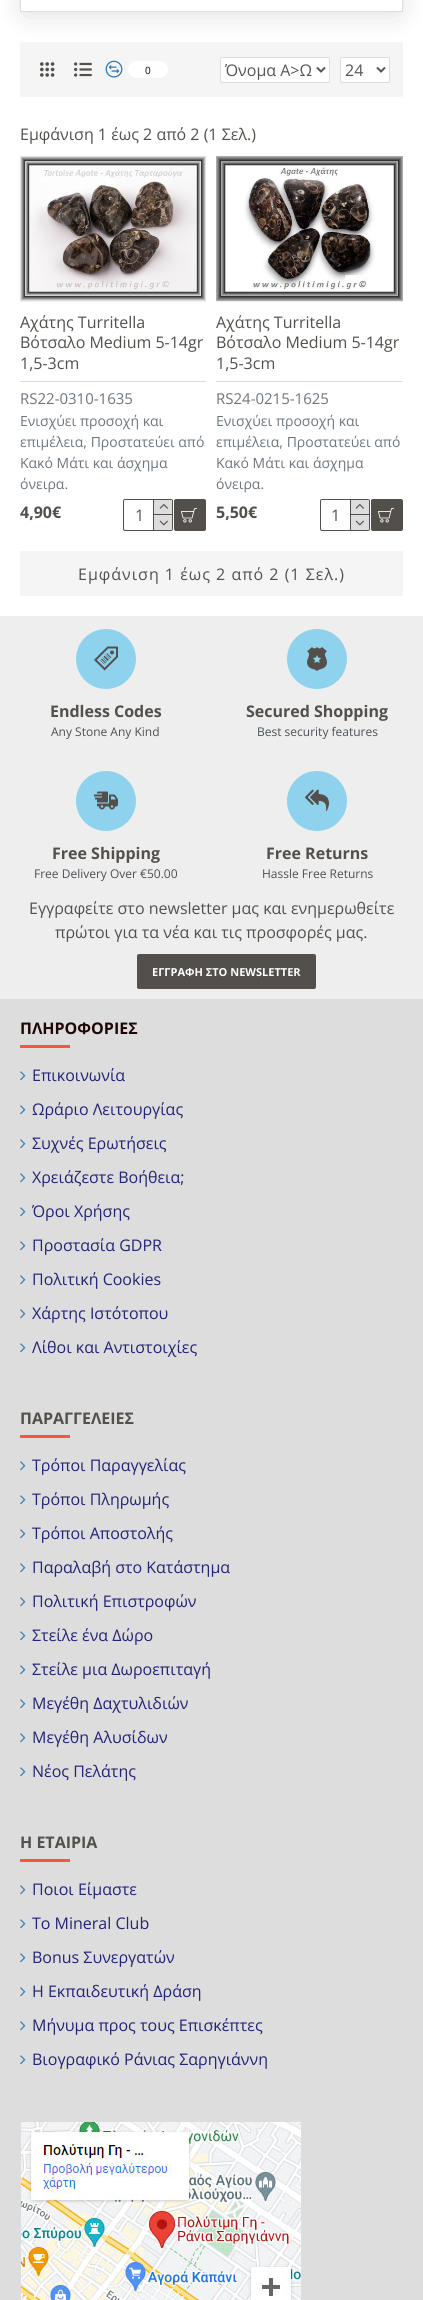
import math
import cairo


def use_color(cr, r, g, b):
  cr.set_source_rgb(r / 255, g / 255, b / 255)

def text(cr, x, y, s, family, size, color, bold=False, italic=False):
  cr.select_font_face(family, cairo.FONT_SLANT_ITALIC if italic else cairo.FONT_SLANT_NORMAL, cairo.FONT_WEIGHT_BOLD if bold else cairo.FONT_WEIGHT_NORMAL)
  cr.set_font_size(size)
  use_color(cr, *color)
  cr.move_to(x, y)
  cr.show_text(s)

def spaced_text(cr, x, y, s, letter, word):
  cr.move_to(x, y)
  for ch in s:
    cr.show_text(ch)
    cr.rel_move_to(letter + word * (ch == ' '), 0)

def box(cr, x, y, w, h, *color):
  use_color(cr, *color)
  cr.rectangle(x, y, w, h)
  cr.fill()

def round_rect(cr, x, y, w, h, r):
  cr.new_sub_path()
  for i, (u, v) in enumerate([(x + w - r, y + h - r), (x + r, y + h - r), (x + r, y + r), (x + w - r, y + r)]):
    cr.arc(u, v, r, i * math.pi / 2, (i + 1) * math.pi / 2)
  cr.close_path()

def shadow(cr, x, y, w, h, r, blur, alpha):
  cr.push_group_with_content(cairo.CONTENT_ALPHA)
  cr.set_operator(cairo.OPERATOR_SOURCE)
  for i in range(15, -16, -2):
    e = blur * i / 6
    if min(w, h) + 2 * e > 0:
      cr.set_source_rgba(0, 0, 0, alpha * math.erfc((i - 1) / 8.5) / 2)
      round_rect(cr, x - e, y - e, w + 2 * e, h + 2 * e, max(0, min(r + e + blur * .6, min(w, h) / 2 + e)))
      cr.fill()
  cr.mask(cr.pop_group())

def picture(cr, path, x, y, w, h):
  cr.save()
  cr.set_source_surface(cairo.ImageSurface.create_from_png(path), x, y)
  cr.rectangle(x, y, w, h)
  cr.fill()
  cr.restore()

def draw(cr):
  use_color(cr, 255, 255, 255)
  cr.paint()
  use_color(cr, 245, 245, 245)
  round_rect(cr, 20, 42, 383, 55, 2)
  cr.fill()
  cr.save()
  cr.set_fill_rule(cairo.FILL_RULE_EVEN_ODD)
  cr.new_path()
  cr.move_to(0, 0)
  cr.line_to(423, 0)
  cr.line_to(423, 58)
  cr.line_to(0, 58)
  cr.close_path()
  cr.move_to(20, -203)
  cr.line_to(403, -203)
  cr.line_to(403, 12)
  cr.line_to(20, 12)
  cr.close_path()
  cr.clip()
  use_color(cr, 0, 0, 0)
  shadow(cr, 25, -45, 373, 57, 0, 15, 0.15)
  cr.restore()
  cr.rectangle(20.5, -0.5, 382, 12)
  use_color(cr, 221, 221, 221)
  cr.set_line_width(1)
  cr.stroke()
  picture(cr, "img_01.png", 40, 62, 15, 15)
  picture(cr, "img_02.png", 74, 62, 18, 15)
  picture(cr, "img_03.png", 105, 60, 18, 18)
  use_color(cr, 255, 255, 255)
  round_rect(cr, 128, 61, 40, 17, 8.5)
  cr.fill()
  round_rect(cr, 220.5, 57.5, 109, 25, 1.5)
  cr.fill_preserve()
  use_color(cr, 221, 221, 221)
  cr.stroke()
  cr.new_path()
  cr.move_to(317, 67.5)
  cr.line_to(321, 71.5)
  cr.line_to(325, 67.5)
  use_color(cr, 85, 85, 85)
  cr.set_line_width(2)
  cr.stroke()
  use_color(cr, 255, 255, 255)
  round_rect(cr, 340.5, 57.5, 49, 25, 1.5)
  cr.fill_preserve()
  use_color(cr, 221, 221, 221)
  cr.set_line_width(1)
  cr.stroke()
  cr.new_path()
  cr.move_to(377, 67.5)
  cr.line_to(381, 71.5)
  cr.line_to(385, 67.5)
  use_color(cr, 85, 85, 85)
  cr.set_line_width(2)
  cr.stroke()
  picture(cr, "img_04.png", 20, 156, 186, 145)
  box(cr, 20, 301, 186, 1, 238, 238, 238)
  box(cr, 20, 381, 186, 1, 221, 221, 221)
  round_rect(cr, 123.5, 499.5, 49, 31, 1.5)
  use_color(cr, 83, 80, 76)
  cr.set_line_width(1)
  cr.stroke()
  box(cr, 20, 551, 383, 45, 245, 245, 245)
  cr.save()
  round_rect(cr, 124, 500, 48, 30, 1)
  cr.clip()
  use_color(cr, 85, 85, 85)
  shadow(cr, 126, 504, 44, 26, 0, 7.5, 1)
  cr.restore()
  cr.save()
  round_rect(cr, 124, 500, 48, 30, 1)
  cr.clip()
  use_color(cr, 255, 255, 255)
  round_rect(cr, 124, 500, 48, 30, 2)
  cr.fill()
  cr.restore()
  box(cr, 153, 500, 1, 30, 83, 80, 76)
  use_color(cr, 221, 221, 221)
  cr.new_path()
  cr.move_to(154, 500)
  cr.line_to(171, 500)
  cr.curve_to(171.5, 500, 172, 500.5, 172, 501)
  cr.line_to(172, 514)
  cr.line_to(154, 514)
  cr.close_path()
  cr.fill()
  box(cr, 154, 514, 18, 1, 83, 80, 76)
  picture(cr, "img_05.png", 159, 503, 9, 6)
  use_color(cr, 221, 221, 221)
  cr.new_path()
  cr.move_to(154, 515)
  cr.line_to(172, 515)
  cr.line_to(172, 529)
  cr.curve_to(172, 529.5, 171.5, 530, 171, 530)
  cr.line_to(154, 530)
  cr.close_path()
  cr.fill()
  picture(cr, "img_06.png", 159, 520, 9, 6)
  use_color(cr, 83, 80, 76)
  round_rect(cr, 174, 499, 32, 32, 2)
  cr.fill()
  picture(cr, "img_07.png", 181, 508, 16, 15)
  picture(cr, "img_08.png", 216, 156, 187, 145)
  box(cr, 216, 301, 187, 1, 238, 238, 238)
  box(cr, 216, 381, 187, 1, 221, 221, 221)
  round_rect(cr, 320.5, 499.5, 49, 31, 1.5)
  use_color(cr, 83, 80, 76)
  cr.stroke()
  cr.save()
  round_rect(cr, 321, 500, 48, 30, 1)
  cr.clip()
  use_color(cr, 85, 85, 85)
  shadow(cr, 323, 504, 44, 26, 0, 7.5, 1)
  cr.restore()
  cr.save()
  round_rect(cr, 321, 500, 48, 30, 1)
  cr.clip()
  use_color(cr, 255, 255, 255)
  round_rect(cr, 321, 500, 48, 30, 2)
  cr.fill()
  cr.restore()
  box(cr, 350, 500, 1, 30, 83, 80, 76)
  use_color(cr, 221, 221, 221)
  cr.new_path()
  cr.move_to(351, 500)
  cr.line_to(368, 500)
  cr.curve_to(368.5, 500, 369, 500.5, 369, 501)
  cr.line_to(369, 514)
  cr.line_to(351, 514)
  cr.close_path()
  cr.fill()
  box(cr, 351, 514, 18, 1, 83, 80, 76)
  picture(cr, "img_05.png", 355, 503, 9, 6)
  use_color(cr, 221, 221, 221)
  cr.new_path()
  cr.move_to(351, 515)
  cr.line_to(369, 515)
  cr.line_to(369, 529)
  cr.curve_to(369, 529.5, 368.5, 530, 368, 530)
  cr.line_to(351, 530)
  cr.close_path()
  cr.fill()
  picture(cr, "img_06.png", 355, 520, 9, 6)
  use_color(cr, 83, 80, 76)
  round_rect(cr, 371, 499, 32, 32, 2)
  cr.fill()
  picture(cr, "img_07.png", 378, 508, 16, 15)
  box(cr, 0, 999, 423, 1301, 221, 221, 221)
  box(cr, 0, 616, 423, 383, 238, 238, 238)
  use_color(cr, 143, 210, 238)
  cr.arc(106, 659, 30, 0, 2 * math.pi)
  cr.fill()
  picture(cr, "img_09.png", 94, 646, 24, 25)
  cr.arc(317, 659, 30, 0, 2 * math.pi)
  cr.fill()
  picture(cr, "img_10.png", 307, 647, 20, 24)
  cr.arc(106, 801, 30, 0, 2 * math.pi)
  cr.fill()
  picture(cr, "img_11.png", 94, 791, 24, 19)
  cr.arc(317, 801, 30, 0, 2 * math.pi)
  cr.fill()
  picture(cr, "img_12.png", 305, 789, 24, 22)
  use_color(cr, 83, 80, 76)
  round_rect(cr, 137, 954, 179, 35, 2)
  cr.fill()
  box(cr, 20, 1045, 50, 3, 248, 86, 57)
  picture(cr, "img_13.png", 20, 1071, 6, 10)
  picture(cr, "img_13.png", 20, 1105, 6, 10)
  picture(cr, "img_13.png", 20, 1139, 6, 10)
  picture(cr, "img_13.png", 20, 1173, 6, 10)
  picture(cr, "img_13.png", 20, 1207, 6, 10)
  picture(cr, "img_13.png", 20, 1241, 6, 10)
  picture(cr, "img_13.png", 20, 1275, 6, 10)
  picture(cr, "img_13.png", 20, 1309, 6, 10)
  picture(cr, "img_13.png", 20, 1343, 6, 10)
  box(cr, 20, 1435, 50, 3, 248, 86, 57)
  picture(cr, "img_13.png", 20, 1461, 6, 10)
  picture(cr, "img_13.png", 20, 1495, 6, 10)
  picture(cr, "img_13.png", 20, 1529, 6, 10)
  picture(cr, "img_13.png", 20, 1563, 6, 10)
  picture(cr, "img_13.png", 20, 1597, 6, 10)
  picture(cr, "img_13.png", 20, 1631, 6, 10)
  picture(cr, "img_13.png", 20, 1665, 6, 10)
  picture(cr, "img_13.png", 20, 1699, 6, 10)
  picture(cr, "img_13.png", 20, 1733, 6, 10)
  picture(cr, "img_13.png", 20, 1767, 6, 10)
  box(cr, 20, 1859, 50, 3, 248, 86, 57)
  picture(cr, "img_13.png", 20, 1885, 6, 10)
  picture(cr, "img_13.png", 20, 1919, 6, 10)
  picture(cr, "img_13.png", 20, 1953, 6, 10)
  picture(cr, "img_13.png", 20, 1987, 6, 10)
  picture(cr, "img_13.png", 20, 2021, 6, 10)
  picture(cr, "img_13.png", 20, 2055, 6, 10)
  picture(cr, "img_14.png", 20, 2121, 281, 179)
  text(cr, 145, 74, "0", "Open Sans", 10, (0, 0, 0))
  text(cr, 225, 76, "Όνομα A>Ω", "Open Sans", 16, (85, 85, 85))
  text(cr, 345, 76, "24", "Open Sans", 16, (85, 85, 85))
  text(cr, 20, 140, "Εμφάνιση 1 έως 2 από 2 (1 Σελ.)", "Open Sans", 16, (83, 80, 76))
  text(cr, 20, 328, "Αχάτης Turritella", "Open Sans", 16, (83, 80, 76))
  text(cr, 20, 348, "Βότσαλο Medium 5-14gr", "Open Sans", 16, (83, 80, 76))
  text(cr, 20, 369, "1,5-3cm", "Open Sans", 16, (83, 80, 76))
  text(cr, 20, 404, "RS22-0310-1635", "Open Sans", 15, (109, 118, 125))
  text(cr, 20, 426, "Ενισχύει προσοχή και", "Open Sans", 14, (109, 118, 125))
  text(cr, 20, 447, "επιμέλεια, Προστατεύει από", "Open Sans", 14, (109, 118, 125))
  text(cr, 20, 468, "Κακό Μάτι και άσχημα", "Open Sans", 14, (109, 118, 125))
  text(cr, 20, 489, "όνειρα.", "Open Sans", 14, (109, 118, 125))
  text(cr, 20, 518, "4,90€", "Open Sans", 16, (83, 80, 76), bold=True)
  text(cr, 135, 521, "1", "Open Sans", 16, (85, 85, 85))
  text(cr, 216, 328, "Αχάτης Turritella", "Open Sans", 16, (83, 80, 76))
  text(cr, 216, 348, "Βότσαλο Medium 5-14gr", "Open Sans", 16, (83, 80, 76))
  text(cr, 216, 369, "1,5-3cm", "Open Sans", 16, (83, 80, 76))
  text(cr, 216, 404, "RS24-0215-1625", "Open Sans", 15, (109, 118, 125))
  text(cr, 216, 426, "Ενισχύει προσοχή και", "Open Sans", 14, (109, 118, 125))
  text(cr, 216, 447, "επιμέλεια, Προστατεύει από", "Open Sans", 14, (109, 118, 125))
  text(cr, 216, 468, "Κακό Μάτι και άσχημα", "Open Sans", 14, (109, 118, 125))
  text(cr, 216, 489, "όνειρα.", "Open Sans", 14, (109, 118, 125))
  text(cr, 216, 518, "5,50€", "Open Sans", 16, (83, 80, 76), bold=True)
  text(cr, 331, 521, "1", "Open Sans", 16, (85, 85, 85))
  use_color(cr, 83, 80, 76)
  spaced_text(cr, 78, 580, "Εμφάνιση 1 έως 2 από 2 (1 Σελ.)", 1, 0)
  text(cr, 50, 717, "Endless Codes", "Open Sans", 16, (83, 80, 76), bold=True)
  text(cr, 51, 736, "Αny Stone Αny Kind", "Open Sans", 12, (75, 81, 86))
  text(cr, 246, 717, "Secured Shopping", "Open Sans", 16, (83, 80, 76), bold=True)
  text(cr, 257, 736, "Best security features", "Open Sans", 12, (75, 81, 86))
  text(cr, 52, 859, "Free Shipping", "Open Sans", 16, (83, 80, 76), bold=True)
  text(cr, 34, 878, "Free Delivery Over €50.00", "Open Sans", 12, (75, 81, 86))
  text(cr, 266, 859, "Free Returns", "Open Sans", 16, (83, 80, 76), bold=True)
  text(cr, 262, 878, "Hassle Free Returns", "Open Sans", 12, (75, 81, 86))
  text(cr, 29, 914, "Εγγραφείτε στο newsletter μας και ενημερωθείτε", "Open Sans", 16, (83, 80, 76))
  text(cr, 55, 938, "πρώτοι για τα νέα και τις προσφορές μας.", "Open Sans", 16, (83, 80, 76))
  text(cr, 152, 976, "ΕΓΓΡΑΦΗ ΣΤΟ NEWSLETTER", "Open Sans", 11, (255, 255, 255), bold=True)
  text(cr, 20, 1034, "ΠΛΗΡΟΦΟΡΙΕΣ", "Open Sans", 16, (33, 6, 6), bold=True)
  text(cr, 32, 1081, "Επικοινωνία", "Open Sans", 16, (35, 36, 117))
  text(cr, 32, 1115, "Ωράριο Λειτουργίας", "Open Sans", 16, (35, 36, 117))
  text(cr, 32, 1149, "Συχνές Ερωτήσεις", "Open Sans", 16, (35, 36, 117))
  text(cr, 32, 1183, "Χρειάζεστε Βοήθεια;", "Open Sans", 16, (35, 36, 117))
  text(cr, 32, 1217, "Όροι Χρήσης", "Open Sans", 16, (35, 36, 117))
  text(cr, 32, 1251, "Προστασία GDPR", "Open Sans", 16, (35, 36, 117))
  text(cr, 32, 1285, "Πολιτική Cookies", "Open Sans", 16, (35, 36, 117))
  text(cr, 32, 1319, "Χάρτης Ιστότοπου", "Open Sans", 16, (35, 36, 117))
  text(cr, 32, 1353, "Λίθοι και Αντιστοιχίες", "Open Sans", 16, (35, 36, 117))
  text(cr, 20, 1424, "ΠΑΡΑΓΓΕΛΕΙΕΣ", "Open Sans", 16, (83, 80, 76), bold=True)
  text(cr, 32, 1471, "Τρόποι Παραγγελίας", "Open Sans", 16, (35, 36, 117))
  text(cr, 32, 1505, "Τρόποι Πληρωμής", "Open Sans", 16, (35, 36, 117))
  text(cr, 32, 1539, "Τρόποι Αποστολής", "Open Sans", 16, (35, 36, 117))
  text(cr, 32, 1573, "Παραλαβή στο Κατάστημα", "Open Sans", 16, (35, 36, 117))
  text(cr, 32, 1607, "Πολιτική Επιστροφών", "Open Sans", 16, (35, 36, 117))
  text(cr, 32, 1641, "Στείλε ένα Δώρο", "Open Sans", 16, (35, 36, 117))
  text(cr, 32, 1675, "Στείλε μια Δωροεπιταγή", "Open Sans", 16, (35, 36, 117))
  text(cr, 32, 1709, "Μεγέθη Δαχτυλιδιών", "Open Sans", 16, (35, 36, 117))
  text(cr, 32, 1743, "Μεγέθη Αλυσίδων", "Open Sans", 16, (35, 36, 117))
  text(cr, 32, 1777, "Νέος Πελάτης", "Open Sans", 16, (35, 36, 117))
  text(cr, 20, 1848, "Η ΕΤΑΙΡΙΑ", "Open Sans", 16, (83, 80, 76), bold=True)
  text(cr, 32, 1895, "Ποιοι Είμαστε", "Open Sans", 16, (35, 36, 117))
  text(cr, 32, 1929, "Το Mineral Club", "Open Sans", 16, (35, 36, 117))
  text(cr, 32, 1963, "Bonus Συνεργατών", "Open Sans", 16, (35, 36, 117))
  text(cr, 32, 1997, "Η Εκπαιδευτική Δράση", "Open Sans", 16, (35, 36, 117))
  text(cr, 32, 2031, "Μήνυμα προς τους Επισκέπτες", "Open Sans", 16, (35, 36, 117))
  text(cr, 32, 2065, "Βιογραφικό Ράνιας Σαρηγιάννη", "Open Sans", 16, (35, 36, 117))


surface = cairo.ImageSurface(cairo.FORMAT_RGB24, 423, 2300)
cr = cairo.Context(surface)
options = cairo.FontOptions()
options.set_hint_metrics(cairo.HINT_METRICS_OFF)
options.set_hint_style(cairo.HINT_STYLE_NONE)
cr.set_font_options(options)
cr.set_miter_limit(4)
draw(cr)
surface.write_to_png("out.png")
